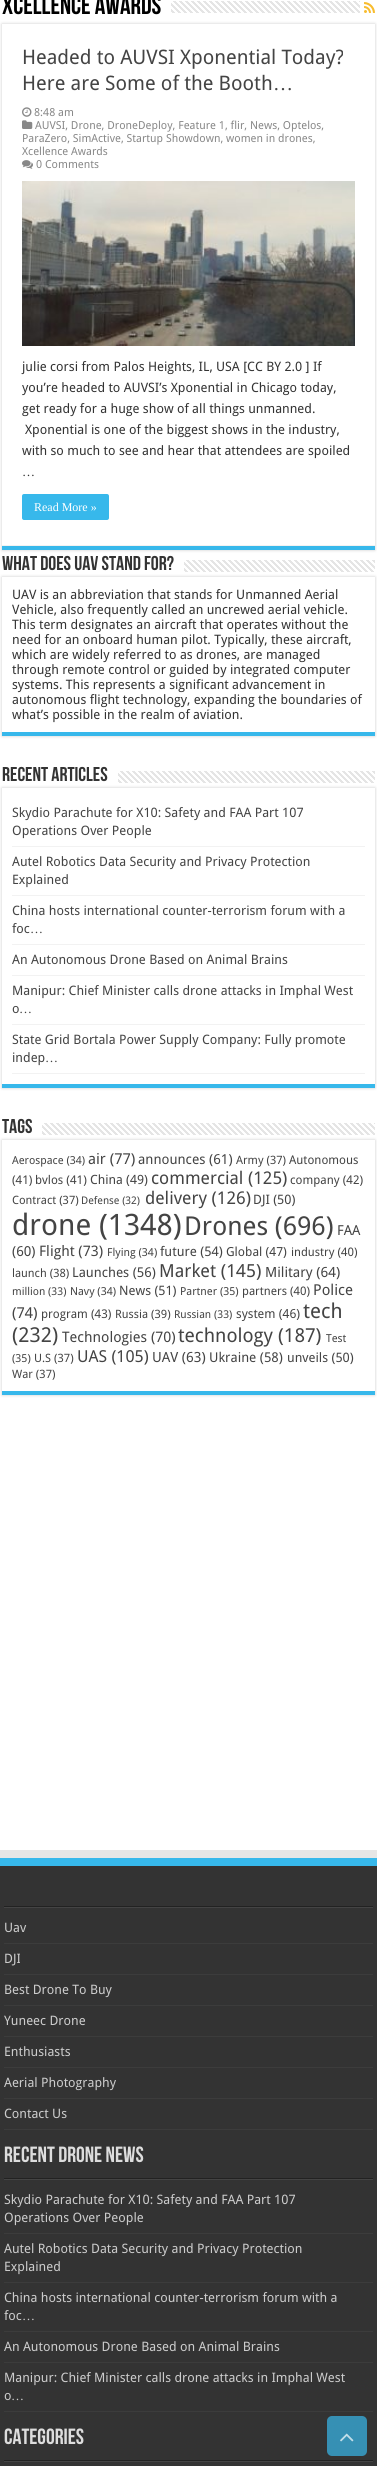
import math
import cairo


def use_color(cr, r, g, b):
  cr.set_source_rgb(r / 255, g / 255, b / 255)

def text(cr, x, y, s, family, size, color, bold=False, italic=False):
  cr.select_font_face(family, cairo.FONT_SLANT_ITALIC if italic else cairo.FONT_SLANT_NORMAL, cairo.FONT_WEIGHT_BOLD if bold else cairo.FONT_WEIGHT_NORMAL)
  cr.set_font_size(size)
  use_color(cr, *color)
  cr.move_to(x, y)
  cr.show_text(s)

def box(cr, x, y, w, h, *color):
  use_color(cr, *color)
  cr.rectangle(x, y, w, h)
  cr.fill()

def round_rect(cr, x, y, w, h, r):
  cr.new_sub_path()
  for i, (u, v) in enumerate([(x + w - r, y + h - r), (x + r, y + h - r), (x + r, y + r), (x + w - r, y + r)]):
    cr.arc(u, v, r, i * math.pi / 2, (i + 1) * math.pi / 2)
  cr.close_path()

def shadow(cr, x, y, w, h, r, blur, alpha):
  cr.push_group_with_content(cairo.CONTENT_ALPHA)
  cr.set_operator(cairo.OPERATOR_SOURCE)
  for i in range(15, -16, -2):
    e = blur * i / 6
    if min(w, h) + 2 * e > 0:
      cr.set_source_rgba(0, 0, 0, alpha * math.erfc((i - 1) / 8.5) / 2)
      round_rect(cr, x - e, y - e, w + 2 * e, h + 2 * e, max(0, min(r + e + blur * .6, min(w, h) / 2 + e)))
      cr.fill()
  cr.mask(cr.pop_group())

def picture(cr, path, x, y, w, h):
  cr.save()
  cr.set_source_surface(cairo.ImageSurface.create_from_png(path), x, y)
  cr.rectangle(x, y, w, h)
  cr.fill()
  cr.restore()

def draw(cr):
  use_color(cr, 255, 255, 255)
  cr.paint()
  picture(cr, "img_01.png", 171, 1, 189, 12)
  picture(cr, "img_02.png", 364, 2, 11, 11)
  cr.save()
  cr.set_fill_rule(cairo.FILL_RULE_EVEN_ODD)
  cr.new_path()
  cr.move_to(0, 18)
  cr.line_to(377, 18)
  cr.line_to(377, 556)
  cr.line_to(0, 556)
  cr.close_path()
  cr.move_to(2, 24)
  cr.line_to(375, 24)
  cr.line_to(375, 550)
  cr.line_to(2, 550)
  cr.close_path()
  cr.clip()
  use_color(cr, 202, 202, 202)
  shadow(cr, 2, 24, 373, 526, 0, 1.5, 1)
  cr.restore()
  box(cr, 2, 546, 373, 4, 55, 184, 235)
  box(cr, 2, 545, 373, 1, 242, 242, 242)
  picture(cr, "img_03.png", 22, 107, 10, 10)
  picture(cr, "img_04.png", 22, 120, 11, 9)
  picture(cr, "img_05.png", 22, 160, 11, 9)
  picture(cr, "img_06.png", 22, 181, 333, 165)
  use_color(cr, 55, 184, 235)
  round_rect(cr, 22, 494, 87, 26, 2)
  cr.fill()
  cr.save()
  cr.set_fill_rule(cairo.FILL_RULE_EVEN_ODD)
  cr.new_path()
  cr.move_to(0, 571)
  cr.line_to(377, 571)
  cr.line_to(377, 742)
  cr.line_to(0, 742)
  cr.close_path()
  cr.move_to(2, 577)
  cr.line_to(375, 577)
  cr.line_to(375, 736)
  cr.line_to(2, 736)
  cr.close_path()
  cr.clip()
  use_color(cr, 202, 202, 202)
  shadow(cr, 2, 577, 373, 159, 0, 1.5, 1)
  cr.restore()
  picture(cr, "img_07.png", 184, 560, 191, 12)
  box(cr, 2, 732, 373, 4, 55, 184, 235)
  cr.save()
  cr.set_fill_rule(cairo.FILL_RULE_EVEN_ODD)
  cr.new_path()
  cr.move_to(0, 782)
  cr.line_to(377, 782)
  cr.line_to(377, 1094)
  cr.line_to(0, 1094)
  cr.close_path()
  cr.move_to(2, 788)
  cr.line_to(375, 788)
  cr.line_to(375, 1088)
  cr.line_to(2, 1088)
  cr.close_path()
  cr.clip()
  use_color(cr, 202, 202, 202)
  shadow(cr, 2, 788, 373, 300, 0, 1.5, 1)
  cr.restore()
  picture(cr, "img_08.png", 118, 771, 257, 12)
  box(cr, 2, 1084, 373, 4, 55, 184, 235)
  box(cr, 12, 846, 353, 1, 242, 242, 242)
  box(cr, 12, 895, 353, 1, 242, 242, 242)
  box(cr, 12, 944, 353, 1, 242, 242, 242)
  box(cr, 12, 975, 353, 1, 242, 242, 242)
  box(cr, 12, 1024, 353, 1, 242, 242, 242)
  box(cr, 12, 1073, 353, 1, 242, 242, 242)
  cr.save()
  cr.set_fill_rule(cairo.FILL_RULE_EVEN_ODD)
  cr.new_path()
  cr.move_to(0, 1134)
  cr.line_to(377, 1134)
  cr.line_to(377, 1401)
  cr.line_to(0, 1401)
  cr.close_path()
  cr.move_to(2, 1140)
  cr.line_to(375, 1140)
  cr.line_to(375, 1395)
  cr.line_to(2, 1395)
  cr.close_path()
  cr.clip()
  use_color(cr, 202, 202, 202)
  shadow(cr, 2, 1140, 373, 255, 0, 1.5, 1)
  cr.restore()
  picture(cr, "img_09.png", 42, 1123, 333, 12)
  box(cr, 2, 1391, 373, 4, 55, 184, 235)
  box(cr, 0, 1850, 377, 8, 230, 230, 230)
  box(cr, 0, 1866, 377, 600, 51, 51, 51)
  box(cr, 0, 1858, 377, 8, 55, 184, 235)
  box(cr, 4, 1906, 369, 1, 34, 34, 34)
  box(cr, 4, 1907, 369, 1, 68, 68, 68)
  box(cr, 4, 1943, 369, 1, 60, 60, 60)
  box(cr, 4, 1974, 369, 1, 60, 60, 60)
  box(cr, 4, 2005, 369, 1, 60, 60, 60)
  box(cr, 4, 2036, 369, 1, 60, 60, 60)
  box(cr, 4, 2067, 369, 1, 60, 60, 60)
  box(cr, 4, 2098, 369, 1, 60, 60, 60)
  box(cr, 4, 2129, 369, 1, 60, 60, 60)
  box(cr, 4, 2178, 369, 1, 34, 34, 34)
  box(cr, 4, 2179, 369, 1, 68, 68, 68)
  box(cr, 4, 2233, 369, 1, 60, 60, 60)
  box(cr, 4, 2282, 369, 1, 60, 60, 60)
  box(cr, 4, 2331, 369, 1, 60, 60, 60)
  box(cr, 4, 2362, 369, 1, 60, 60, 60)
  box(cr, 4, 2411, 369, 1, 60, 60, 60)
  box(cr, 4, 2460, 369, 1, 34, 34, 34)
  box(cr, 4, 2461, 369, 1, 68, 68, 68)
  use_color(cr, 54, 144, 180)
  round_rect(cr, 327, 2416, 40, 40, 5)
  cr.fill()
  picture(cr, "img_10.png", 340, 2433, 14, 9)
  text(cr, 2, 14, "Xcellence Awards", "Bebas Neue", 26, (0, 0, 0), bold=True)
  text(cr, 22, 64, "Headed to AUVSI Xponential Today?", "Droid Sans", 20, (68, 68, 68))
  text(cr, 22, 90, "Here are Some of the Booth", "Droid Sans", 20, (68, 68, 68))
  text(cr, 273, 90, "…", "Liberation Serif", 20, (68, 68, 68))
  text(cr, 34, 116, "8:48 am", "Droid Sans", 11.05, (136, 136, 136))
  text(cr, 35, 129, "AUVSI, Drone, DroneDeploy, Feature 1, flir, News, Optelos,", "Droid Sans", 11.05, (136, 136, 136))
  text(cr, 22, 142, "ParaZero, SimActive, Startup Showdown, women in drones,", "Droid Sans", 11.05, (136, 136, 136))
  text(cr, 22, 155, "Xcellence Awards", "Droid Sans", 11.05, (136, 136, 136))
  text(cr, 36, 168, "0 Comments", "Droid Sans", 11.05, (136, 136, 136))
  text(cr, 22, 371, "julie corsi from Palos Heights, IL, USA [CC BY 2.0 ] If", "Droid Sans", 13, (51, 51, 51))
  text(cr, 22, 392, "you’re headed to AUVSI’s Xponential in Chicago today,", "Droid Sans", 13, (51, 51, 51))
  text(cr, 22, 413, "get ready for a huge show of all things unmanned.", "Droid Sans", 13, (51, 51, 51))
  text(cr, 25, 434, "Xponential is one of the biggest shows in the industry,", "Droid Sans", 13, (51, 51, 51))
  text(cr, 22, 455, "with so much to see and hear that attendees are spoiled", "Droid Sans", 13, (51, 51, 51))
  text(cr, 22, 476, "…", "Liberation Serif", 13, (51, 51, 51))
  text(cr, 34, 511, "Read More »", "Liberation Serif", 12, (255, 255, 255))
  text(cr, 2, 570, "What does UAV stand for?", "Bebas Neue", 20, (51, 51, 51), bold=True)
  text(cr, 12, 599, "UAV is an abbreviation that stands for Unmanned Aerial", "Droid Sans", 13, (51, 51, 51))
  text(cr, 12, 614, "Vehicle, also frequently called an uncrewed aerial vehicle.", "Droid Sans", 13, (51, 51, 51))
  text(cr, 12, 629, "This term designates an aircraft that operates without the", "Droid Sans", 13, (51, 51, 51))
  text(cr, 12, 644, "need for an onboard human pilot. Typically, these aircraft,", "Droid Sans", 13, (51, 51, 51))
  text(cr, 12, 659, "which are widely referred to as drones, are managed", "Droid Sans", 13, (51, 51, 51))
  text(cr, 12, 674, "through remote control or guided by integrated computer", "Droid Sans", 13, (51, 51, 51))
  text(cr, 12, 689, "systems. This represents a significant advancement in", "Droid Sans", 13, (51, 51, 51))
  text(cr, 12, 704, "autonomous flight technology, expanding the boundaries of", "Droid Sans", 13, (51, 51, 51))
  text(cr, 12, 719, "what’s possible in the realm of aviation.", "Droid Sans", 13, (51, 51, 51))
  text(cr, 2, 781, "Recent Articles", "Bebas Neue", 20, (51, 51, 51), bold=True)
  text(cr, 12, 817, "Skydio Parachute for X10: Safety and FAA Part 107", "Droid Sans", 13, (68, 68, 68))
  text(cr, 12, 835, "Operations Over People", "Droid Sans", 13, (68, 68, 68))
  text(cr, 12, 866, "Autel Robotics Data Security and Privacy Protection", "Droid Sans", 13, (68, 68, 68))
  text(cr, 12, 884, "Explained", "Droid Sans", 13, (68, 68, 68))
  text(cr, 12, 915, "China hosts international counter-terrorism forum with a", "Droid Sans", 13, (68, 68, 68))
  text(cr, 12, 933, "foc", "Droid Sans", 13, (68, 68, 68))
  text(cr, 30, 933, "…", "Liberation Serif", 13, (68, 68, 68))
  text(cr, 12, 964, "An Autonomous Drone Based on Animal Brains", "Droid Sans", 13, (68, 68, 68))
  text(cr, 12, 995, "Manipur: Chief Minister calls drone attacks in Imphal West", "Droid Sans", 13, (68, 68, 68))
  text(cr, 12, 1013, "o", "Droid Sans", 13, (68, 68, 68))
  text(cr, 19, 1013, "…", "Liberation Serif", 13, (68, 68, 68))
  text(cr, 12, 1044, "State Grid Bortala Power Supply Company: Fully promote", "Droid Sans", 13, (68, 68, 68))
  text(cr, 12, 1062, "indep", "Droid Sans", 13, (68, 68, 68))
  text(cr, 45, 1062, "…", "Liberation Serif", 13, (68, 68, 68))
  text(cr, 2, 1133, "Tags", "Bebas Neue", 20, (51, 51, 51), bold=True)
  text(cr, 12, 1164, "Aerospace (34)", "Droid Sans", 11, (68, 68, 68))
  text(cr, 88, 1164, "air (77)", "Droid Sans", 15, (68, 68, 68))
  text(cr, 138, 1164, "announces (61)", "Droid Sans", 13.75, (68, 68, 68))
  text(cr, 236, 1164, "Army (37)", "Droid Sans", 11.5, (68, 68, 68))
  text(cr, 289, 1164, "Autonomous", "Droid Sans", 12, (68, 68, 68))
  text(cr, 12, 1184, "(41)", "Droid Sans", 12, (68, 68, 68))
  text(cr, 35, 1184, "bvlos (41)", "Droid Sans", 12, (68, 68, 68))
  text(cr, 90, 1184, "China (49)", "Droid Sans", 12.75, (68, 68, 68))
  text(cr, 151, 1184, "commercial (125)", "Droid Sans", 17.5, (68, 68, 68))
  text(cr, 290, 1184, "company (42)", "Droid Sans", 12, (68, 68, 68))
  text(cr, 12, 1204, "Contract (37)", "Droid Sans", 11.5, (68, 68, 68))
  text(cr, 81, 1204, "Defense (32)", "Droid Sans", 10.5, (68, 68, 68))
  text(cr, 145, 1204, "delivery (126)", "Droid Sans", 17.5, (68, 68, 68))
  text(cr, 253, 1204, "DJI (50)", "Droid Sans", 13, (68, 68, 68))
  text(cr, 12, 1235, "drone (1348)", "Droid Sans", 29.5, (68, 68, 68))
  text(cr, 184, 1235, "Drones (696)", "Droid Sans", 26, (68, 68, 68))
  text(cr, 337, 1235, "FAA", "Droid Sans", 13.75, (68, 68, 68))
  text(cr, 12, 1256, "(60)", "Droid Sans", 13.75, (68, 68, 68))
  text(cr, 39, 1256, "Flight (73)", "Droid Sans", 14.5, (68, 68, 68))
  text(cr, 107, 1256, "Flying (34)", "Droid Sans", 11, (68, 68, 68))
  text(cr, 160, 1256, "future (54)", "Droid Sans", 13.25, (68, 68, 68))
  text(cr, 226, 1256, "Global (47)", "Droid Sans", 12.5, (68, 68, 68))
  text(cr, 291, 1256, "industry (40)", "Droid Sans", 11.75, (68, 68, 68))
  text(cr, 12, 1277, "launch (38)", "Droid Sans", 11.5, (68, 68, 68))
  text(cr, 72, 1277, "Launches (56)", "Droid Sans", 13.5, (68, 68, 68))
  text(cr, 159, 1277, "Market (145)", "Droid Sans", 18, (68, 68, 68))
  text(cr, 265, 1277, "Military (64)", "Droid Sans", 14, (68, 68, 68))
  text(cr, 12, 1295, "million (33)", "Droid Sans", 10.75, (68, 68, 68))
  text(cr, 70, 1295, "Navy (34)", "Droid Sans", 11, (68, 68, 68))
  text(cr, 119, 1295, "News (51)", "Droid Sans", 13, (68, 68, 68))
  text(cr, 180, 1295, "Partner (35)", "Droid Sans", 11, (68, 68, 68))
  text(cr, 242, 1295, "partners (40)", "Droid Sans", 11.75, (68, 68, 68))
  text(cr, 313, 1295, "Police", "Droid Sans", 15, (68, 68, 68))
  text(cr, 12, 1318, "(74)", "Droid Sans", 15, (68, 68, 68))
  text(cr, 41, 1318, "program (43)", "Droid Sans", 12, (68, 68, 68))
  text(cr, 115, 1318, "Russia (39)", "Droid Sans", 11.5, (68, 68, 68))
  text(cr, 174, 1318, "Russian (33)", "Droid Sans", 10.75, (68, 68, 68))
  text(cr, 236, 1318, "system (46)", "Droid Sans", 12.5, (68, 68, 68))
  text(cr, 303, 1318, "tech", "Droid Sans", 20.5, (68, 68, 68))
  text(cr, 12, 1342, "(232)", "Droid Sans", 20.5, (68, 68, 68))
  text(cr, 62, 1342, "Technologies (70)", "Droid Sans", 14.5, (68, 68, 68))
  text(cr, 178, 1342, "technology (187)", "Droid Sans", 19.25, (68, 68, 68))
  text(cr, 326, 1342, "Test", "Droid Sans", 11, (68, 68, 68))
  text(cr, 12, 1362, "(35)", "Droid Sans", 11, (68, 68, 68))
  text(cr, 34, 1362, "U.S (37)", "Droid Sans", 11.5, (68, 68, 68))
  text(cr, 77, 1362, "UAS (105)", "Droid Sans", 16.5, (68, 68, 68))
  text(cr, 152, 1362, "UAV (63)", "Droid Sans", 14, (68, 68, 68))
  text(cr, 209, 1362, "Ukraine (58)", "Droid Sans", 13.5, (68, 68, 68))
  text(cr, 287, 1362, "unveils (50)", "Droid Sans", 13, (68, 68, 68))
  text(cr, 12, 1378, "War (37)", "Droid Sans", 11.5, (68, 68, 68))
  text(cr, 4, 1932, "Uav", "Droid Sans", 13, (204, 204, 204))
  text(cr, 4, 1963, "DJI", "Droid Sans", 13, (204, 204, 204))
  text(cr, 4, 1994, "Best Drone To Buy", "Droid Sans", 13, (204, 204, 204))
  text(cr, 4, 2025, "Yuneec Drone", "Droid Sans", 13, (204, 204, 204))
  text(cr, 4, 2056, "Enthusiasts", "Droid Sans", 13, (204, 204, 204))
  text(cr, 4, 2087, "Aerial Photography", "Droid Sans", 13, (204, 204, 204))
  text(cr, 4, 2118, "Contact Us", "Droid Sans", 13, (204, 204, 204))
  text(cr, 4, 2162, "Recent Drone News", "Bebas Neue", 22, (221, 221, 221), bold=True)
  text(cr, 4, 2204, "Skydio Parachute for X10: Safety and FAA Part 107", "Droid Sans", 13, (204, 204, 204))
  text(cr, 4, 2222, "Operations Over People", "Droid Sans", 13, (204, 204, 204))
  text(cr, 4, 2253, "Autel Robotics Data Security and Privacy Protection", "Droid Sans", 13, (204, 204, 204))
  text(cr, 4, 2271, "Explained", "Droid Sans", 13, (204, 204, 204))
  text(cr, 4, 2302, "China hosts international counter-terrorism forum with a", "Droid Sans", 13, (204, 204, 204))
  text(cr, 4, 2320, "foc", "Droid Sans", 13, (204, 204, 204))
  text(cr, 22, 2320, "…", "Liberation Serif", 13, (204, 204, 204))
  text(cr, 4, 2351, "An Autonomous Drone Based on Animal Brains", "Droid Sans", 13, (204, 204, 204))
  text(cr, 4, 2382, "Manipur: Chief Minister calls drone attacks in Imphal West", "Droid Sans", 13, (204, 204, 204))
  text(cr, 4, 2400, "o", "Droid Sans", 13, (204, 204, 204))
  text(cr, 11, 2400, "…", "Liberation Serif", 13, (204, 204, 204))
  text(cr, 4, 2444, "Categories", "Bebas Neue", 22, (221, 221, 221), bold=True)


surface = cairo.ImageSurface(cairo.FORMAT_RGB24, 377, 2466)
cr = cairo.Context(surface)
options = cairo.FontOptions()
options.set_hint_metrics(cairo.HINT_METRICS_OFF)
options.set_hint_style(cairo.HINT_STYLE_NONE)
cr.set_font_options(options)
cr.set_miter_limit(4)
draw(cr)
surface.write_to_png("out.png")
